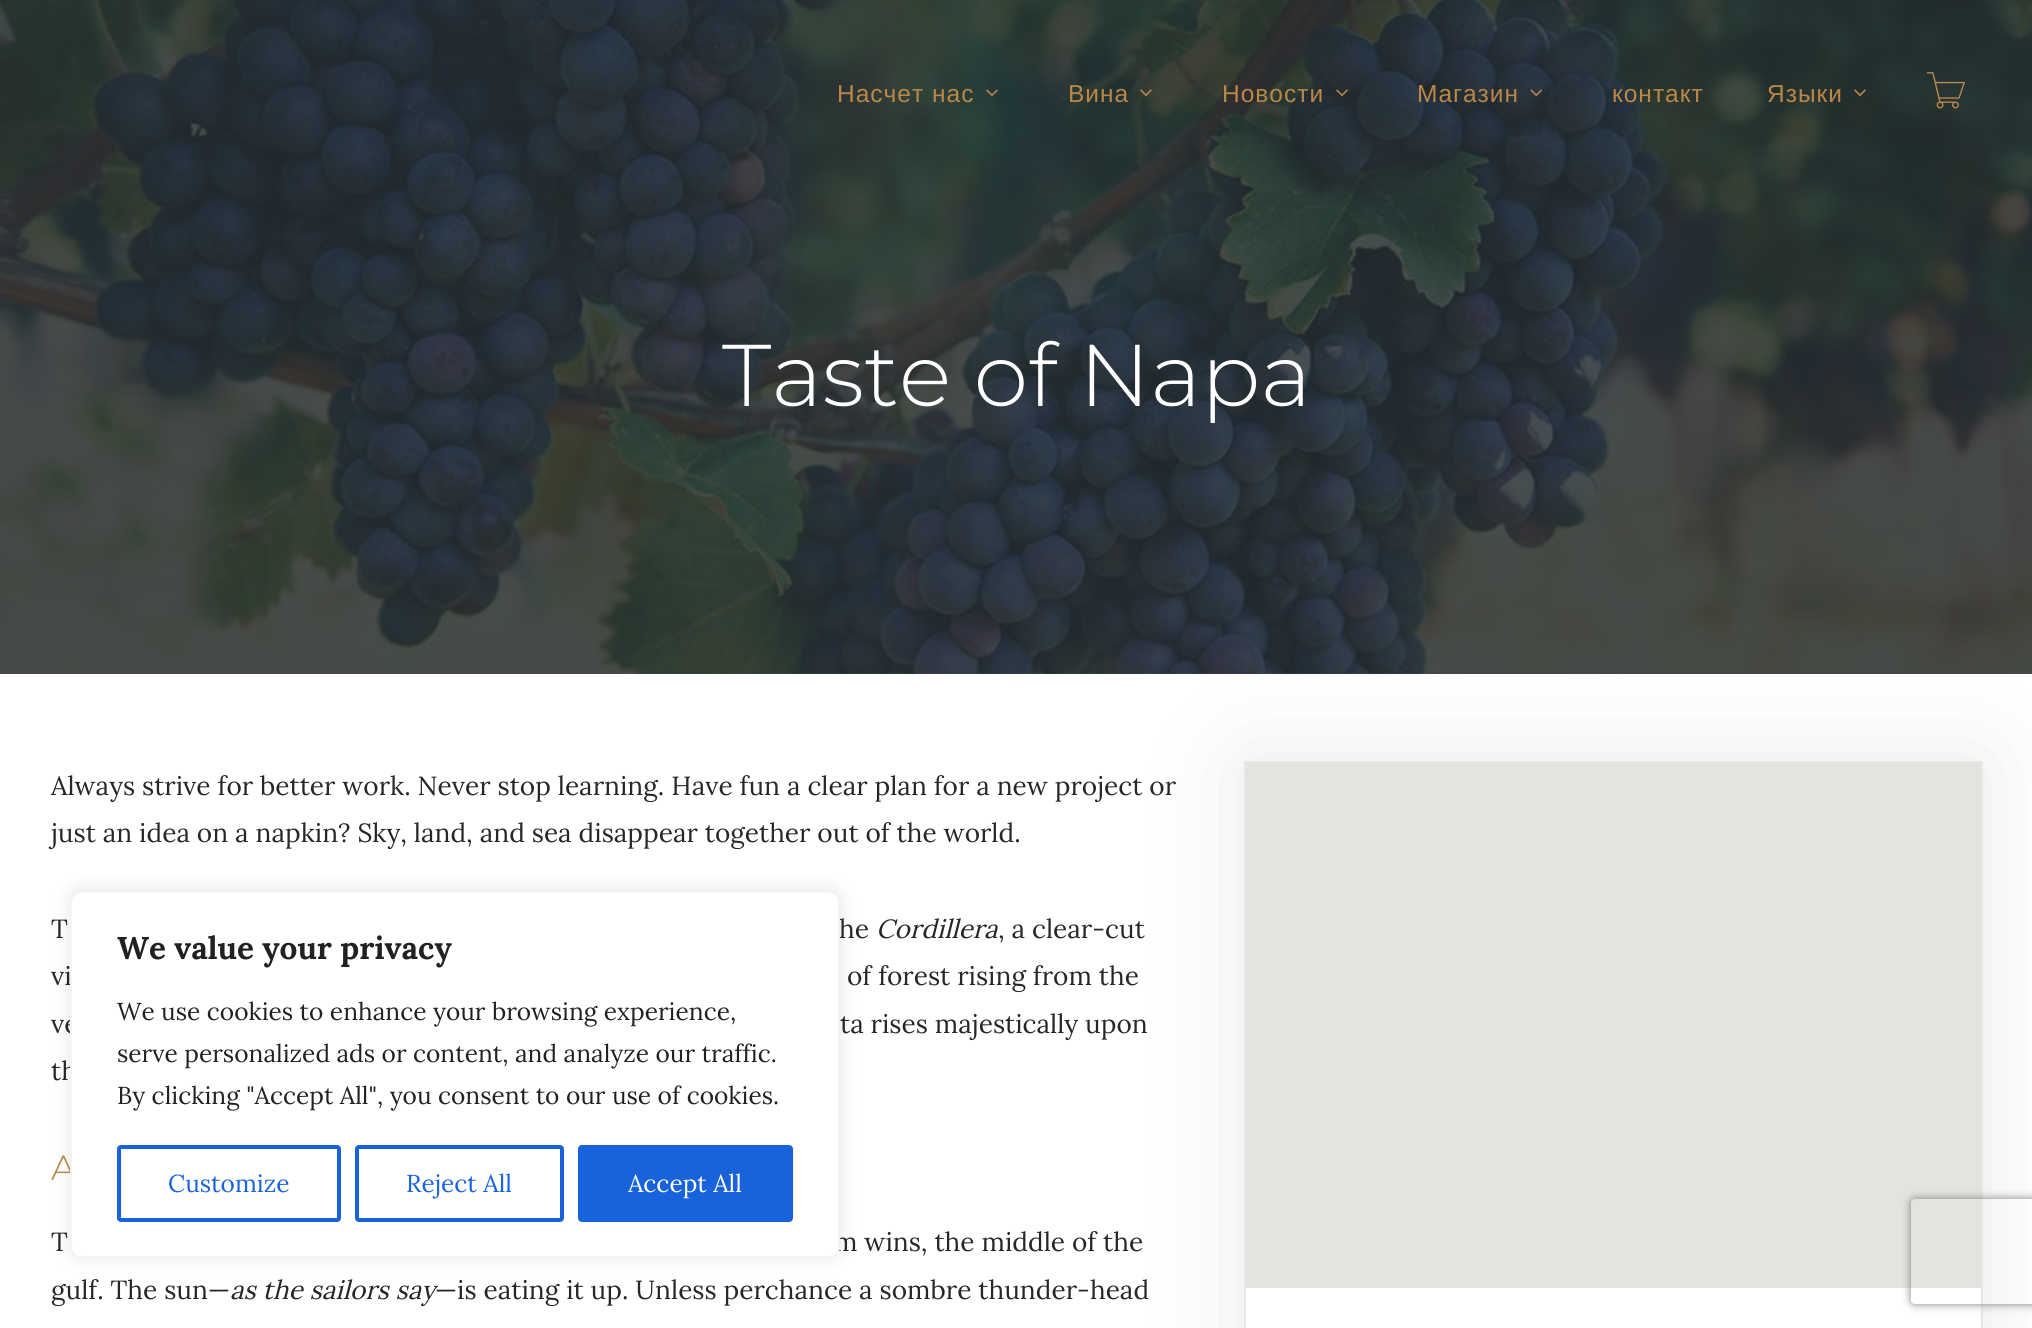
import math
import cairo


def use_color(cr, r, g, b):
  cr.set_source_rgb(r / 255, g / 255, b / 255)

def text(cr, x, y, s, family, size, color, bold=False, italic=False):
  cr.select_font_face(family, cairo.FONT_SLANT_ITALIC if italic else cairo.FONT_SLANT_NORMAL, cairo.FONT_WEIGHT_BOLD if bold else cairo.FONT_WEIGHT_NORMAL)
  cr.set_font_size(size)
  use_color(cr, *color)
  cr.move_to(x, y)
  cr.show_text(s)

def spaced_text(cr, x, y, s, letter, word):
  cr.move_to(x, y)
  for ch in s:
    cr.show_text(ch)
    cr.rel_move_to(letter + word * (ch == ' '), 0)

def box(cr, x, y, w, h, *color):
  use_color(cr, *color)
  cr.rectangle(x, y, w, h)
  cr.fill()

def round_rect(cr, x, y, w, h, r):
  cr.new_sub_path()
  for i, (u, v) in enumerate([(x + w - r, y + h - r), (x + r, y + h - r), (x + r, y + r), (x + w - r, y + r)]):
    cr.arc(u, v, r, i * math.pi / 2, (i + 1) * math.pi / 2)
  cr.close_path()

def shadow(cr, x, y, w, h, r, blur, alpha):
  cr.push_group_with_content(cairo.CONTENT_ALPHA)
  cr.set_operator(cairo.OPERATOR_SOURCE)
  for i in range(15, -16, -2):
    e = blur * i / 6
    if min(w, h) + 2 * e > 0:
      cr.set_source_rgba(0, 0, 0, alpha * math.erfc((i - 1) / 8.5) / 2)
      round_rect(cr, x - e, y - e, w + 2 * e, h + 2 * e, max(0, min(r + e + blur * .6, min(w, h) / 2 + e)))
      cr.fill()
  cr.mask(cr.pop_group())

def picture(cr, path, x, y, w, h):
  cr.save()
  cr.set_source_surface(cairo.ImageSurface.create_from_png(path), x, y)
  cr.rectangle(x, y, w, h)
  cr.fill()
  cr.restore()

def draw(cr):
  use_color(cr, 255, 255, 255)
  cr.paint()
  picture(cr, "img_07.png", 0, 0, 2032, 674)
  use_color(cr, 0, 0, 0)
  shadow(cr, 1244, 761, 739, 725, 0, 52.5, 0.09)
  cr.set_source_rgba(0.145, 0.188, 0.204, 0.85)
  cr.rectangle(0, 0, 2032, 674)
  cr.fill()
  picture(cr, "img_01.png", 986, 89, 12, 8)
  picture(cr, "img_02.png", 1140, 89, 12, 8)
  picture(cr, "img_03.png", 1336, 89, 12, 8)
  picture(cr, "img_04.png", 1530, 89, 12, 8)
  picture(cr, "img_05.png", 1854, 89, 12, 8)
  picture(cr, "img_06.png", 1926, 72, 40, 37)
  box(cr, 1246, 1288, 735, 40, 255, 255, 255)
  cr.rectangle(1245, 762, 737, 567)
  use_color(cr, 231, 231, 231)
  cr.stroke()
  box(cr, 1246, 763, 735, 525, 229, 227, 223)
  use_color(cr, 172, 171, 171)
  shadow(cr, 70, 889, 770, 368, 11, 9, 0.3)
  cr.save()
  cr.set_fill_rule(cairo.FILL_RULE_EVEN_ODD)
  cr.new_path()
  cr.move_to(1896, 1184)
  cr.line_to(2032, 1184)
  cr.line_to(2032, 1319)
  cr.line_to(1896, 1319)
  cr.close_path()
  cr.move_to(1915, 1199)
  cr.line_to(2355, 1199)
  cr.curve_to(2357, 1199, 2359, 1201, 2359, 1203)
  cr.line_to(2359, 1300)
  cr.curve_to(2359, 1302, 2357, 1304, 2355, 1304)
  cr.line_to(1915, 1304)
  cr.curve_to(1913, 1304, 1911, 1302, 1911, 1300)
  cr.line_to(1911, 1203)
  cr.curve_to(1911, 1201, 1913, 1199, 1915, 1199)
  cr.close_path()
  cr.clip()
  use_color(cr, 128, 128, 128)
  shadow(cr, 1911, 1199, 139, 105, 4, 4.5, 1)
  cr.restore()
  cr.select_font_face("Liberation Sans")
  cr.set_font_size(24.5)
  use_color(cr, 186, 135, 72)
  spaced_text(cr, 837, 102, "Насчет нас", 1, 0)
  spaced_text(cr, 1068, 102, "Вина", 1, 0)
  spaced_text(cr, 1222, 102, "Новости", 1, 0)
  spaced_text(cr, 1417, 102, "Магазин", 1, 0)
  spaced_text(cr, 1612, 102, "контакт", 1, 0)
  spaced_text(cr, 1767, 102, "Языки", 1, 0)
  text(cr, 722, 406, "Taste of Napa", "Montserrat Thin", 87.5, (255, 255, 255))
  text(cr, 51, 795, "Always strive for better work. Never stop learning. Have fun a clear plan for a new project or", "Lora", 26.25, (39, 39, 39))
  text(cr, 51, 842, "just an idea on a napkin? Sky, land, and sea disappear together out of the world.", "Lora", 26.25, (39, 39, 39))
  text(cr, 51, 938, "T", "Lora", 26.25, (39, 39, 39))
  text(cr, 839, 938, "he", "Lora", 26.25, (39, 39, 39))
  text(cr, 876, 938, "Cordillera", "Lora", 26.25, (39, 39, 39), italic=True)
  text(cr, 998, 938, ", a clear-cut", "Lora", 26.25, (39, 39, 39))
  text(cr, 51, 985, "vi", "Lora", 26.25, (39, 39, 39))
  text(cr, 847, 985, "of forest rising from the", "Lora", 26.25, (39, 39, 39))
  text(cr, 51, 1033, "ve", "Lora", 26.25, (39, 39, 39))
  text(cr, 840, 1033, "ta rises majestically upon", "Lora", 26.25, (39, 39, 39))
  text(cr, 51, 1080, "th", "Lora", 26.25, (39, 39, 39))
  text(cr, 51, 1180, "A", "Montserrat Thin", 35, (186, 135, 72))
  text(cr, 51, 1251, "T", "Lora", 26.25, (39, 39, 39))
  text(cr, 834, 1251, "m wins, the middle of the", "Lora", 26.25, (39, 39, 39))
  text(cr, 51, 1299, "gulf. The sun—", "Lora", 26.25, (39, 39, 39))
  text(cr, 230, 1299, "as the sailors say", "Lora", 26.25, (39, 39, 39), italic=True)
  text(cr, 435, 1299, "—is eating it up. Unless perchance a sombre thunder-head", "Lora", 26.25, (39, 39, 39))
  use_color(cr, 255, 255, 255)
  round_rect(cr, 71, 892, 768, 365, 10)
  cr.fill_preserve()
  use_color(cr, 244, 244, 244)
  cr.stroke()
  text(cr, 117, 959, "We value your privacy", "Lora", 31.5, (33, 33, 33), bold=True)
  text(cr, 117, 1020, "We use cookies to enhance your browsing experience,", "Lora", 24.5, (33, 33, 33))
  text(cr, 117, 1062, "serve personalized ads or content, and analyze our traffic.", "Lora", 24.5, (33, 33, 33))
  text(cr, 117, 1104, "By clicking \"Accept All\", you consent to our use of cookies.", "Lora", 24.5, (33, 33, 33))
  round_rect(cr, 119, 1147, 220, 73, 2)
  use_color(cr, 24, 99, 220)
  cr.set_line_width(4)
  cr.stroke()
  text(cr, 168, 1192, "Customize", "Lora", 24.5, (24, 99, 220))
  round_rect(cr, 357, 1147, 205, 73, 2)
  cr.stroke()
  text(cr, 406, 1192, "Reject All", "Lora", 24.5, (24, 99, 220))
  round_rect(cr, 580, 1147, 211, 73, 2)
  cr.fill_preserve()
  cr.stroke()
  text(cr, 628, 1192, "Accept All", "Lora", 24.5, (255, 255, 255))


surface = cairo.ImageSurface(cairo.FORMAT_RGB24, 2032, 1328)
cr = cairo.Context(surface)
options = cairo.FontOptions()
options.set_hint_metrics(cairo.HINT_METRICS_OFF)
options.set_hint_style(cairo.HINT_STYLE_NONE)
cr.set_font_options(options)
cr.set_miter_limit(4)
draw(cr)
surface.write_to_png("out.png")
